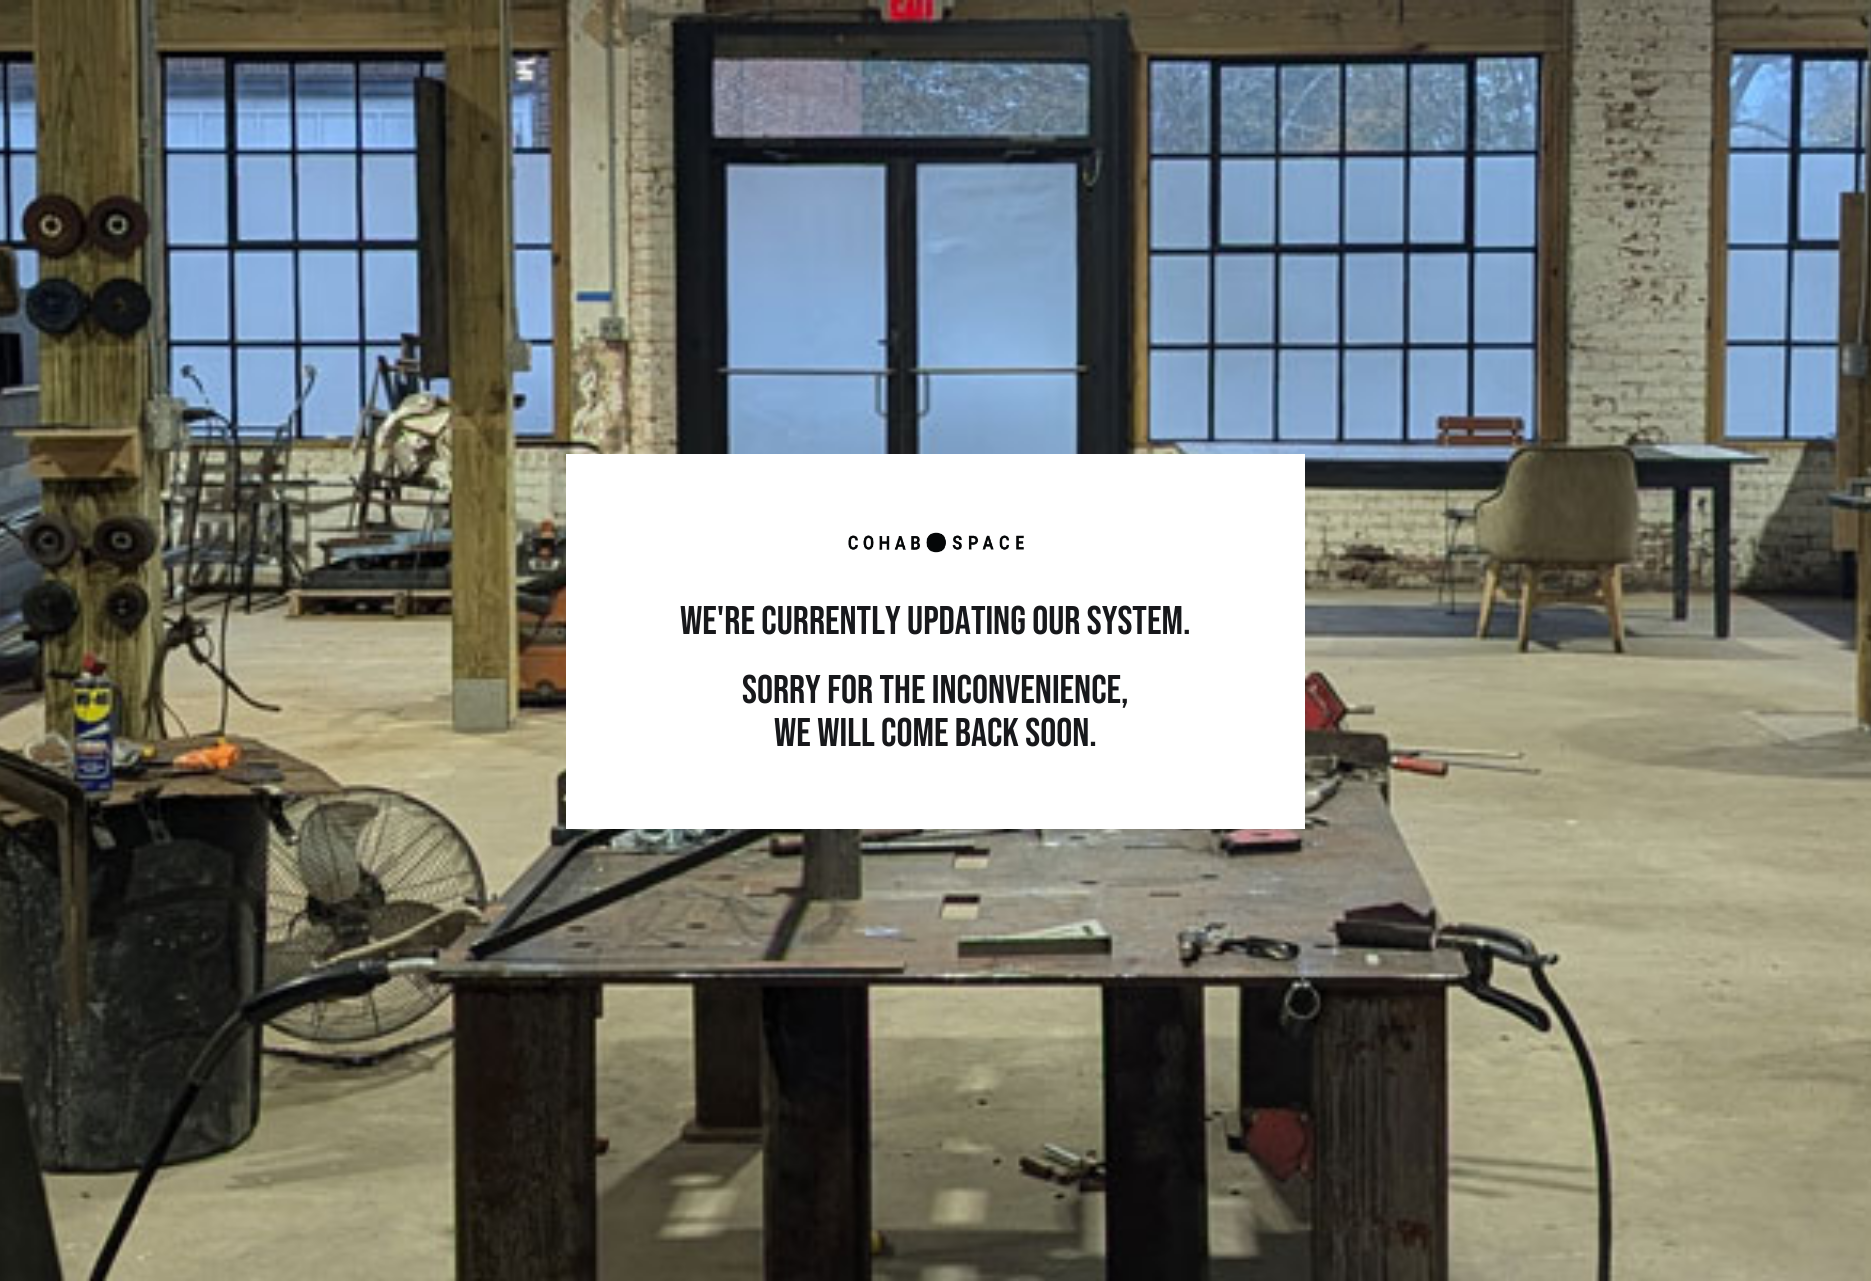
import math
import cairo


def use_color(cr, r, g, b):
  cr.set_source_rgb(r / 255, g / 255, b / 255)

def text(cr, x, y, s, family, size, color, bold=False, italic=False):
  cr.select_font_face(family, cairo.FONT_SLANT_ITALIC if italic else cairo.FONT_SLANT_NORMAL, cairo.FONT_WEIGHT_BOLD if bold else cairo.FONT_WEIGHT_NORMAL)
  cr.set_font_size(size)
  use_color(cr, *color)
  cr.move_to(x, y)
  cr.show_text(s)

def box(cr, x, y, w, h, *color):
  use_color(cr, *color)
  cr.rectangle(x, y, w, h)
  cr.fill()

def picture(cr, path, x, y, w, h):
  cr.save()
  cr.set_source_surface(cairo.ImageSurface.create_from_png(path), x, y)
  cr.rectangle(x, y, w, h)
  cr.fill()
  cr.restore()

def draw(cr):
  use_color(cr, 255, 255, 255)
  cr.paint()
  picture(cr, "img_01.png", 0, 0, 1871, 1281)
  box(cr, 566, 454, 739, 375, 255, 255, 255)
  picture(cr, "img_02.png", 848, 532, 176, 21)
  text(cr, 680, 634, "We're currently updating our system.", "Bebas Neue", 40, (23, 24, 27))
  text(cr, 742, 703, "Sorry for the inconvenience,", "Bebas Neue", 40, (23, 24, 27))
  text(cr, 774, 746, "we will come back soon.", "Bebas Neue", 40, (23, 24, 27))


surface = cairo.ImageSurface(cairo.FORMAT_RGB24, 1871, 1281)
cr = cairo.Context(surface)
options = cairo.FontOptions()
options.set_hint_metrics(cairo.HINT_METRICS_OFF)
options.set_hint_style(cairo.HINT_STYLE_NONE)
cr.set_font_options(options)
cr.set_miter_limit(4)
draw(cr)
surface.write_to_png("out.png")
